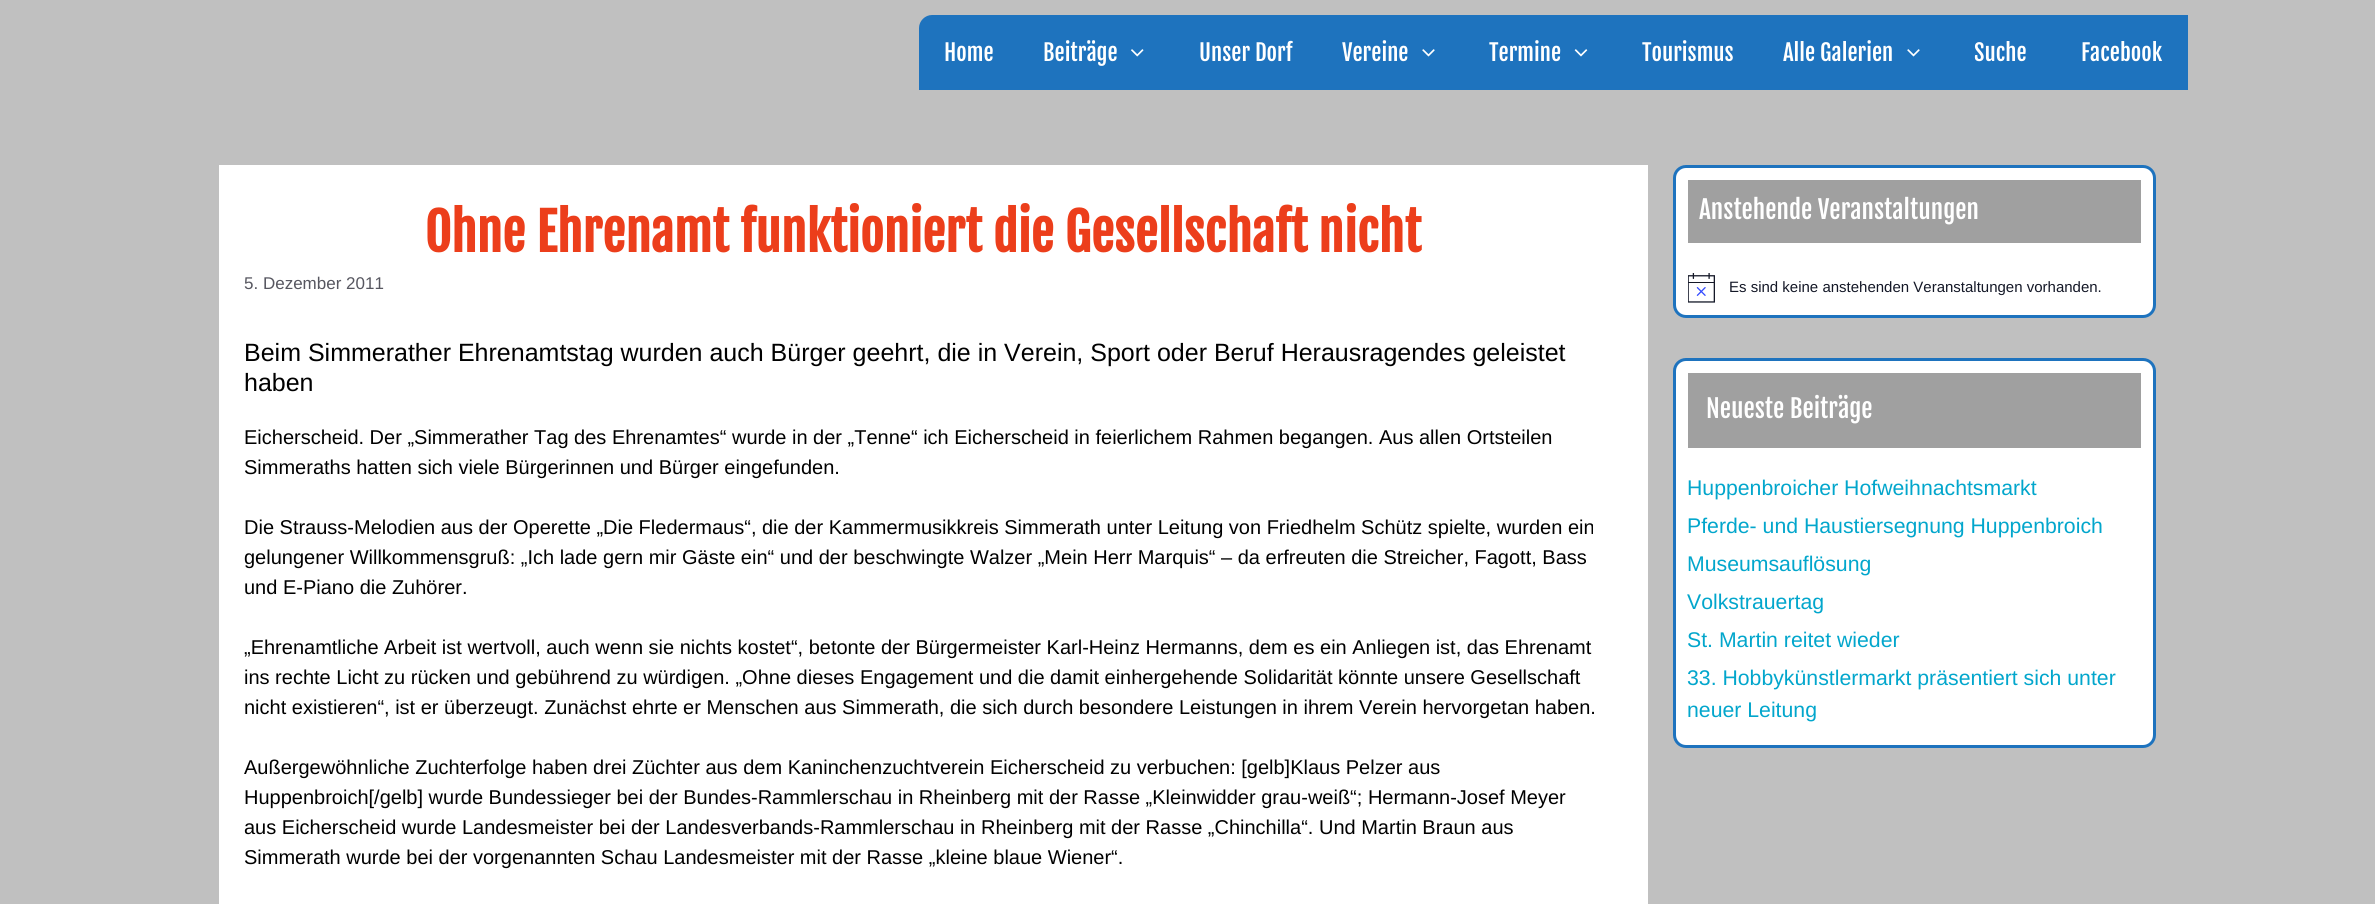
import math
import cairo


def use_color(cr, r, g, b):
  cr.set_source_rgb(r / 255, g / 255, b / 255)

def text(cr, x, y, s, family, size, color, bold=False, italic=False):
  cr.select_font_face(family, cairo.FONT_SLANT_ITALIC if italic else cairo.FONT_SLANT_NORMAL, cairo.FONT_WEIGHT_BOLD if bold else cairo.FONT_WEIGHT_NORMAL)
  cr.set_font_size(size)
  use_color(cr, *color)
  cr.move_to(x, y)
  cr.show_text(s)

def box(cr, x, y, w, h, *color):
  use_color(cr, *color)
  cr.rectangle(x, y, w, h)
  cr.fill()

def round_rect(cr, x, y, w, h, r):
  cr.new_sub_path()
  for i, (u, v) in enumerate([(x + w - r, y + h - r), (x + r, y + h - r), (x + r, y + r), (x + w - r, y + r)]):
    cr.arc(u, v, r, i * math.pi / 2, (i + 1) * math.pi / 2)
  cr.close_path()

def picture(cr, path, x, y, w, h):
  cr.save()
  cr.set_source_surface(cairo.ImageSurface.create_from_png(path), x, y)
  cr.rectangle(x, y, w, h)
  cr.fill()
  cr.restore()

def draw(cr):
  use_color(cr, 192, 192, 192)
  cr.paint()
  use_color(cr, 30, 115, 190)
  cr.new_path()
  cr.move_to(932, 15)
  cr.line_to(2188, 15)
  cr.line_to(2188, 90)
  cr.line_to(919, 90)
  cr.line_to(919, 28)
  cr.curve_to(919, 21, 925, 15, 932, 15)
  cr.close_path()
  cr.fill()
  picture(cr, "img_01.png", 1131, 49, 13, 8)
  picture(cr, "img_02.png", 1422, 49, 13, 8)
  picture(cr, "img_03.png", 1574, 49, 14, 8)
  picture(cr, "img_02.png", 1907, 49, 13, 8)
  box(cr, 219, 165, 1429, 739, 255, 255, 255)
  round_rect(cr, 1674.5, 166.5, 480, 150, 11.5)
  cr.fill_preserve()
  use_color(cr, 30, 115, 190)
  cr.set_line_width(3)
  cr.stroke()
  box(cr, 1688, 180, 453, 63, 160, 160, 160)
  picture(cr, "img_04.png", 1688, 273, 27, 30)
  use_color(cr, 255, 255, 255)
  round_rect(cr, 1674.5, 359.5, 480, 387, 11.5)
  cr.fill_preserve()
  use_color(cr, 30, 115, 190)
  cr.stroke()
  box(cr, 1688, 373, 453, 75, 160, 160, 160)
  text(cr, 944, 61, "Home", "Fjalla One", 22.5, (255, 255, 255))
  text(cr, 1043, 61, "Beiträge", "Fjalla One", 22.5, (255, 255, 255))
  text(cr, 1199, 61, "Unser Dorf", "Fjalla One", 22.5, (255, 255, 255))
  text(cr, 1342, 61, "Vereine", "Fjalla One", 22.5, (255, 255, 255))
  text(cr, 1489, 61, "Termine", "Fjalla One", 22.5, (255, 255, 255))
  text(cr, 1642, 61, "Tourismus", "Fjalla One", 22.5, (255, 255, 255))
  text(cr, 1783, 61, "Alle Galerien", "Fjalla One", 22.5, (255, 255, 255))
  text(cr, 1974, 61, "Suche", "Fjalla One", 22.5, (255, 255, 255))
  text(cr, 2081, 61, "Facebook", "Fjalla One", 22.5, (255, 255, 255))
  text(cr, 425, 252, "Ohne Ehrenamt funktioniert die Gesellschaft nicht", "Fjalla One", 51.25, (236, 62, 27), bold=True)
  text(cr, 244, 289, "5. Dezember 2011", "Liberation Sans", 17, (87, 87, 96))
  text(cr, 244, 361, "Beim Simmerather Ehrenamtstag wurden auch Bürger geehrt, die in Verein, Sport oder Beruf Herausragendes geleistet", "Liberation Sans", 25, (0, 0, 0))
  text(cr, 244, 391, "haben", "Liberation Sans", 25, (0, 0, 0))
  text(cr, 244, 444, "Eicherscheid. Der „Simmerather Tag des Ehrenamtes“ wurde in der „Tenne“ ich Eicherscheid in feierlichem Rahmen begangen. Aus allen Ortsteilen", "Liberation Sans", 20, (0, 0, 0))
  text(cr, 244, 474, "Simmeraths hatten sich viele Bürgerinnen und Bürger eingefunden.", "Liberation Sans", 20, (0, 0, 0))
  text(cr, 244, 534, "Die Strauss-Melodien aus der Operette „Die Fledermaus“, die der Kammermusikkreis Simmerath unter Leitung von Friedhelm Schütz spielte, wurden ein", "Liberation Sans", 20, (0, 0, 0))
  text(cr, 244, 564, "gelungener Willkommensgruß: „Ich lade gern mir Gäste ein“ und der beschwingte Walzer „Mein Herr Marquis“ – da erfreuten die Streicher, Fagott, Bass", "Liberation Sans", 20, (0, 0, 0))
  text(cr, 244, 594, "und E-Piano die Zuhörer.", "Liberation Sans", 20, (0, 0, 0))
  text(cr, 244, 654, "„Ehrenamtliche Arbeit ist wertvoll, auch wenn sie nichts kostet“, betonte der Bürgermeister Karl-Heinz Hermanns, dem es ein Anliegen ist, das Ehrenamt", "Liberation Sans", 20, (0, 0, 0))
  text(cr, 244, 684, "ins rechte Licht zu rücken und gebührend zu würdigen. „Ohne dieses Engagement und die damit einhergehende Solidarität könnte unsere Gesellschaft", "Liberation Sans", 20, (0, 0, 0))
  text(cr, 244, 714, "nicht existieren“, ist er überzeugt. Zunächst ehrte er Menschen aus Simmerath, die sich durch besondere Leistungen in ihrem Verein hervorgetan haben.", "Liberation Sans", 20, (0, 0, 0))
  text(cr, 244, 774, "Außergewöhnliche Zuchterfolge haben drei Züchter aus dem Kaninchenzuchtverein Eicherscheid zu verbuchen: [gelb]Klaus Pelzer aus", "Liberation Sans", 20, (0, 0, 0))
  text(cr, 244, 804, "Huppenbroich[/gelb] wurde Bundessieger bei der Bundes-Rammlerschau in Rheinberg mit der Rasse „Kleinwidder grau-weiß“; Hermann-Josef Meyer", "Liberation Sans", 20, (0, 0, 0))
  text(cr, 244, 834, "aus Eicherscheid wurde Landesmeister bei der Landesverbands-Rammlerschau in Rheinberg mit der Rasse „Chinchilla“. Und Martin Braun aus", "Liberation Sans", 20, (0, 0, 0))
  text(cr, 244, 864, "Simmerath wurde bei der vorgenannten Schau Landesmeister mit der Rasse „kleine blaue Wiener“.", "Liberation Sans", 20, (0, 0, 0))
  text(cr, 1699, 219, "Anstehende Veranstaltungen", "Fjalla One", 25, (255, 255, 255))
  text(cr, 1729, 292, "Es sind keine anstehenden Veranstaltungen vorhanden.", "Liberation Sans", 15, (20, 24, 39))
  text(cr, 1706, 418, "Neueste Beiträge", "Fjalla One", 25, (255, 255, 255))
  text(cr, 1687, 495, "Huppenbroicher Hofweihnachtsmarkt", "Liberation Sans", 21.25, (2, 166, 204))
  text(cr, 1687, 533, "Pferde- und Haustiersegnung Huppenbroich", "Liberation Sans", 21.25, (2, 166, 204))
  text(cr, 1687, 571, "Museumsauflösung", "Liberation Sans", 21.25, (2, 166, 204))
  text(cr, 1687, 609, "Volkstrauertag", "Liberation Sans", 21.25, (2, 166, 204))
  text(cr, 1687, 647, "St. Martin reitet wieder", "Liberation Sans", 21.25, (2, 166, 204))
  text(cr, 1687, 685, "33. Hobbykünstlermarkt präsentiert sich unter", "Liberation Sans", 21.25, (2, 166, 204))
  text(cr, 1687, 717, "neuer Leitung", "Liberation Sans", 21.25, (2, 166, 204))


surface = cairo.ImageSurface(cairo.FORMAT_RGB24, 2375, 904)
cr = cairo.Context(surface)
options = cairo.FontOptions()
options.set_hint_metrics(cairo.HINT_METRICS_OFF)
options.set_hint_style(cairo.HINT_STYLE_NONE)
cr.set_font_options(options)
cr.set_miter_limit(4)
draw(cr)
surface.write_to_png("out.png")
